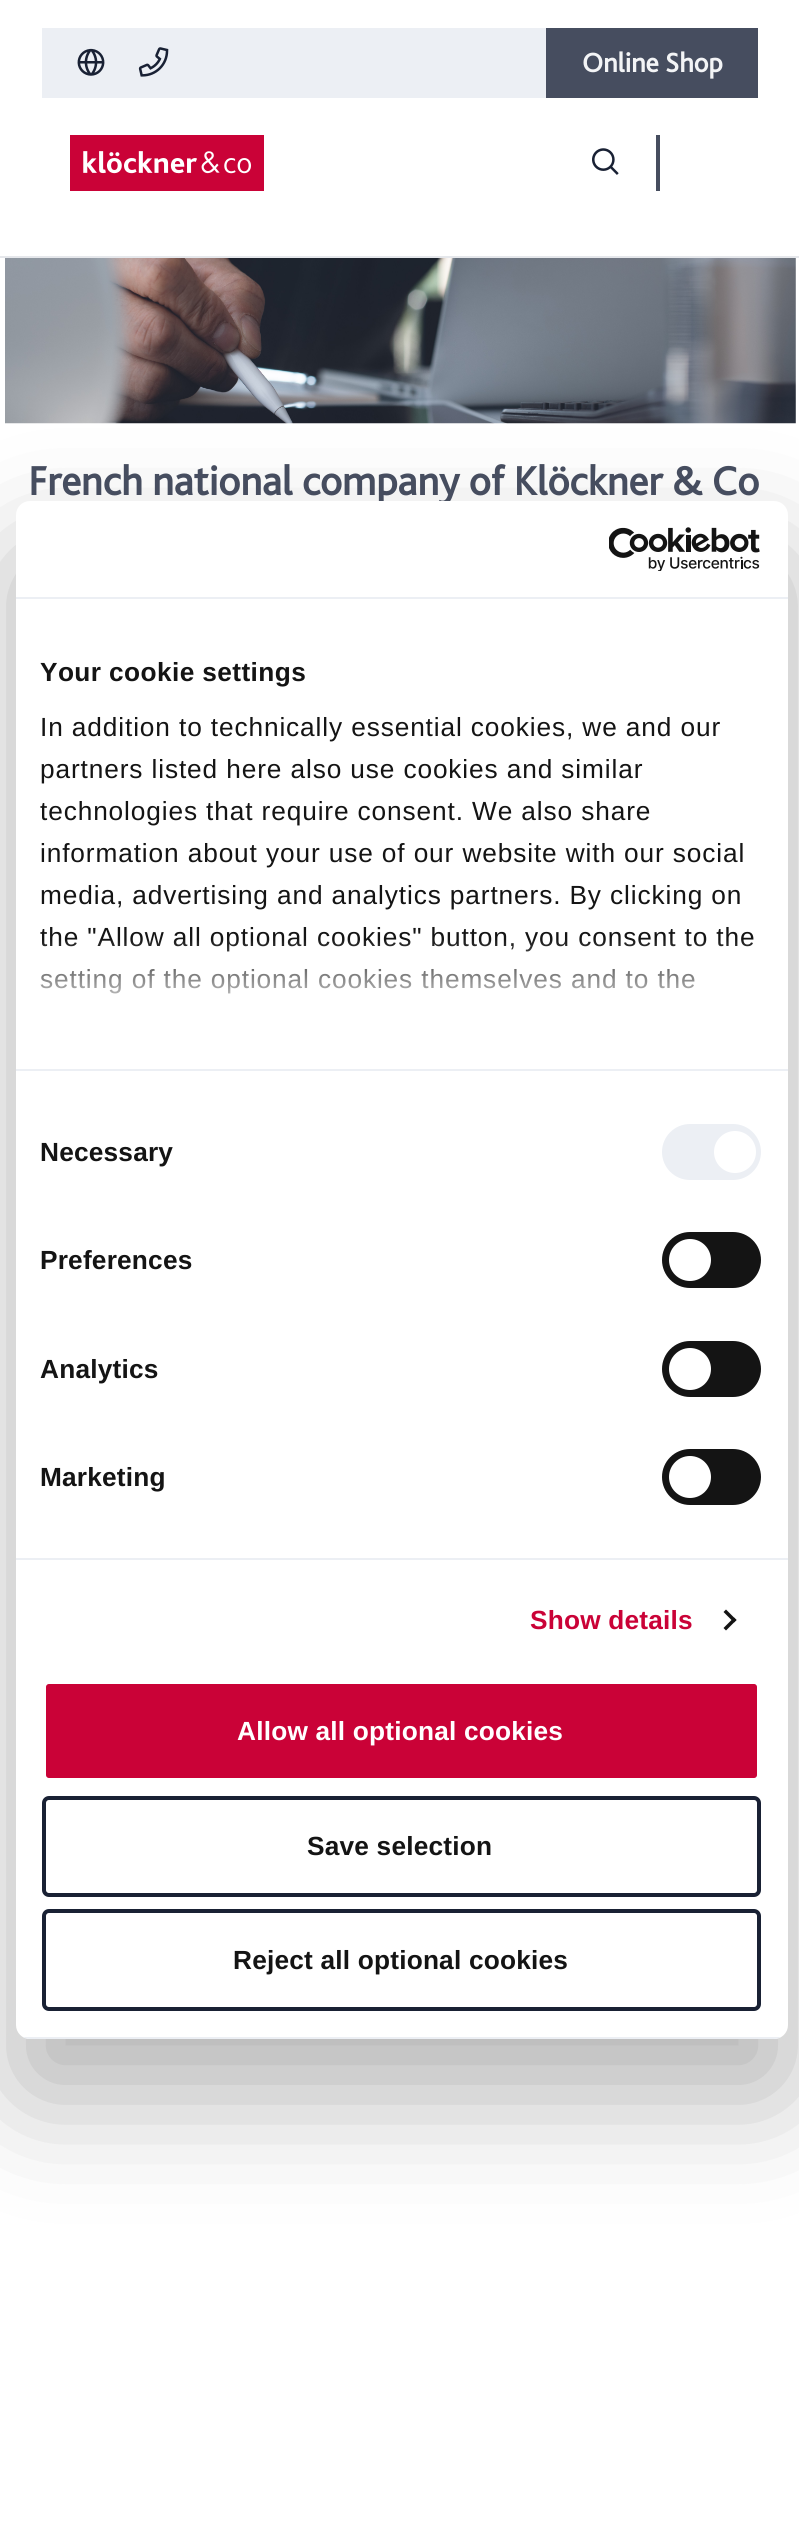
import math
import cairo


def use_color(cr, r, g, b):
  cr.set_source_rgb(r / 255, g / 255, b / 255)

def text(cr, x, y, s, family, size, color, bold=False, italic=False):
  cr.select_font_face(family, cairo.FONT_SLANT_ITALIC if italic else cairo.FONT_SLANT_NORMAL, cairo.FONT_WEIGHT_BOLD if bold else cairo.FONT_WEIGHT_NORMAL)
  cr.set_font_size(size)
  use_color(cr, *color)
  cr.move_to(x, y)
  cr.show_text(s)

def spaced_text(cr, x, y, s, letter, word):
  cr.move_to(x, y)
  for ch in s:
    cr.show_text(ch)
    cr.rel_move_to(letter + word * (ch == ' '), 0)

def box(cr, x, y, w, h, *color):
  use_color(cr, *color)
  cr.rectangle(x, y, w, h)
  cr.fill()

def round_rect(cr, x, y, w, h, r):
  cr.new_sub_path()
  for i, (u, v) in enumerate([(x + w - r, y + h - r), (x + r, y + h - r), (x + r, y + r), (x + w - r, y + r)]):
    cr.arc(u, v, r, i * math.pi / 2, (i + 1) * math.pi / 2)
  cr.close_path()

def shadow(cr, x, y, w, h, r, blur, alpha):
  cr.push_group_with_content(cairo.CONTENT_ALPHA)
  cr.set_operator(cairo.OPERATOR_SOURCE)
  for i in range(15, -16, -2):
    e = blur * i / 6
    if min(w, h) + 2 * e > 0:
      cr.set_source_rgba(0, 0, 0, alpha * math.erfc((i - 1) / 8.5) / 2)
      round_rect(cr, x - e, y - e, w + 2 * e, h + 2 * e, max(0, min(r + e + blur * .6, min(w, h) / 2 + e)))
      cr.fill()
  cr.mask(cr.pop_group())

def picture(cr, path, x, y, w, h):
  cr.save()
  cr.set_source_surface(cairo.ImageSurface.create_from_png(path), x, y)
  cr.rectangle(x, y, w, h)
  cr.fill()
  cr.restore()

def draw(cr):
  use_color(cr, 255, 255, 255)
  cr.paint()
  box(cr, 0, 256, 799, 2, 229, 231, 235)
  box(cr, 42, 28, 504, 70, 236, 239, 244)
  picture(cr, "img_01.png", 77, 48, 28, 28)
  picture(cr, "img_02.png", 138, 47, 31, 30)
  box(cr, 546, 28, 212, 70, 70, 77, 95)
  picture(cr, "img_03.png", 70, 135, 194, 56)
  picture(cr, "img_04.png", 592, 148, 27, 27)
  box(cr, 656, 135, 4, 56, 70, 77, 95)
  picture(cr, "img_05.png", 5, 258, 791, 166)
  use_color(cr, 0, 0, 0)
  shadow(cr, 16, 557, 772, 1538, 14, 59.5, 0.3)
  text(cr, 582, 72, "Online Shop", "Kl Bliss", 28, (243, 244, 246), bold=True)
  text(cr, 28, 495, "French national company of Klöckner & Co", "Kl Bliss", 42, (70, 77, 95), bold=True)
  use_color(cr, 255, 255, 255)
  round_rect(cr, 16, 501, 772, 1538, 14)
  cr.fill()
  box(cr, 16, 597, 772, 2, 236, 239, 244)
  picture(cr, "img_06.png", 609, 527, 151, 44)
  box(cr, 16, 1069, 772, 2, 236, 239, 244)
  cr.select_font_face("Liberation Sans", cairo.FONT_SLANT_NORMAL, cairo.FONT_WEIGHT_BOLD)
  cr.set_font_size(26.25)
  use_color(cr, 20, 20, 20)
  spaced_text(cr, 40, 681, "Your cookie settings", 0.4, 0)
  cr.select_font_face("Liberation Sans")
  spaced_text(cr, 40, 736, "In addition to technically essential cookies, we and our", 0.88, 0)
  spaced_text(cr, 40, 778, "partners listed here also use cookies and similar", 0.88, 0)
  spaced_text(cr, 40, 820, "technologies that require consent. We also share", 0.88, 0)
  spaced_text(cr, 40, 862, "information about your use of our website with our social", 0.88, 0)
  spaced_text(cr, 40, 904, "media, advertising and analytics partners. By clicking on", 0.88, 0)
  spaced_text(cr, 40, 946, "the \"Allow all optional cookies\" button, you consent to the", 0.88, 0)
  spaced_text(cr, 40, 988, "setting of the optional cookies themselves and to the", 0.88, 0)
  gradient = cairo.LinearGradient(389, 1070, 389, 938)
  gradient.add_color_stop_rgba(0, 1, 1, 1, 1)
  gradient.add_color_stop_rgba(0.5, 1, 1, 1, 0.8)
  gradient.add_color_stop_rgba(1, 1, 1, 1, 0)
  cr.set_source(gradient)
  cr.rectangle(41, 940, 712, 54)
  cr.fill()
  box(cr, 16, 1558, 772, 2, 236, 239, 244)
  cr.select_font_face("Liberation Sans", cairo.FONT_SLANT_NORMAL, cairo.FONT_WEIGHT_BOLD)
  use_color(cr, 20, 20, 20)
  spaced_text(cr, 40, 1161, "Necessary", 0.2, 0)
  use_color(cr, 236, 239, 244)
  round_rect(cr, 662, 1124, 99, 56, 28)
  cr.fill()
  use_color(cr, 255, 255, 255)
  cr.arc(735, 1152, 21, 0, 2 * math.pi)
  cr.fill()
  use_color(cr, 20, 20, 20)
  spaced_text(cr, 40, 1269, "Preferences", 0.2, 0)
  round_rect(cr, 662, 1232, 99, 56, 28)
  cr.fill()
  use_color(cr, 255, 255, 255)
  cr.arc(690, 1260, 21, 0, 2 * math.pi)
  cr.fill()
  use_color(cr, 20, 20, 20)
  spaced_text(cr, 40, 1378, "Analytics", 0.2, 0)
  round_rect(cr, 662, 1341, 99, 56, 28)
  cr.fill()
  use_color(cr, 255, 255, 255)
  cr.arc(690, 1369, 21, 0, 2 * math.pi)
  cr.fill()
  use_color(cr, 20, 20, 20)
  spaced_text(cr, 40, 1486, "Marketing", 0.2, 0)
  round_rect(cr, 662, 1449, 99, 56, 28)
  cr.fill()
  use_color(cr, 255, 255, 255)
  cr.arc(690, 1477, 21, 0, 2 * math.pi)
  cr.fill()
  use_color(cr, 202, 2, 55)
  spaced_text(cr, 530, 1629, "Show details", 0.2, 0)
  use_color(cr, 20, 20, 20)
  cr.new_path()
  cr.move_to(726, 1609.5)
  cr.line_to(736.5, 1620)
  cr.line_to(734, 1622.5)
  cr.line_to(723.5, 1612)
  cr.close_path()
  cr.fill()
  cr.new_path()
  cr.move_to(734, 1617.5)
  cr.line_to(736.5, 1620)
  cr.line_to(726, 1630.5)
  cr.line_to(723.5, 1628)
  cr.close_path()
  cr.fill()
  cr.save()
  round_rect(cr, 16, 501, 772, 1538, 14)
  cr.clip()
  box(cr, 16, 2037, 772, 2, 236, 239, 244)
  cr.restore()
  use_color(cr, 202, 2, 55)
  round_rect(cr, 44, 1682, 715, 98, 5)
  cr.fill_preserve()
  use_color(cr, 255, 255, 255)
  cr.set_line_width(4)
  cr.stroke()
  spaced_text(cr, 237, 1740, "Allow all optional cookies", 0.2, 0)
  round_rect(cr, 44, 1798, 715, 97, 5)
  use_color(cr, 25, 33, 52)
  cr.stroke()
  use_color(cr, 20, 20, 20)
  spaced_text(cr, 307, 1855, "Save selection", 0.2, 0)
  round_rect(cr, 44, 1911, 715, 98, 5)
  use_color(cr, 25, 33, 52)
  cr.stroke()
  use_color(cr, 20, 20, 20)
  spaced_text(cr, 233, 1969, "Reject all optional cookies", 0.2, 0)


surface = cairo.ImageSurface(cairo.FORMAT_RGB24, 799, 2538)
cr = cairo.Context(surface)
options = cairo.FontOptions()
options.set_hint_metrics(cairo.HINT_METRICS_OFF)
options.set_hint_style(cairo.HINT_STYLE_NONE)
cr.set_font_options(options)
cr.set_miter_limit(4)
draw(cr)
surface.write_to_png("out.png")
